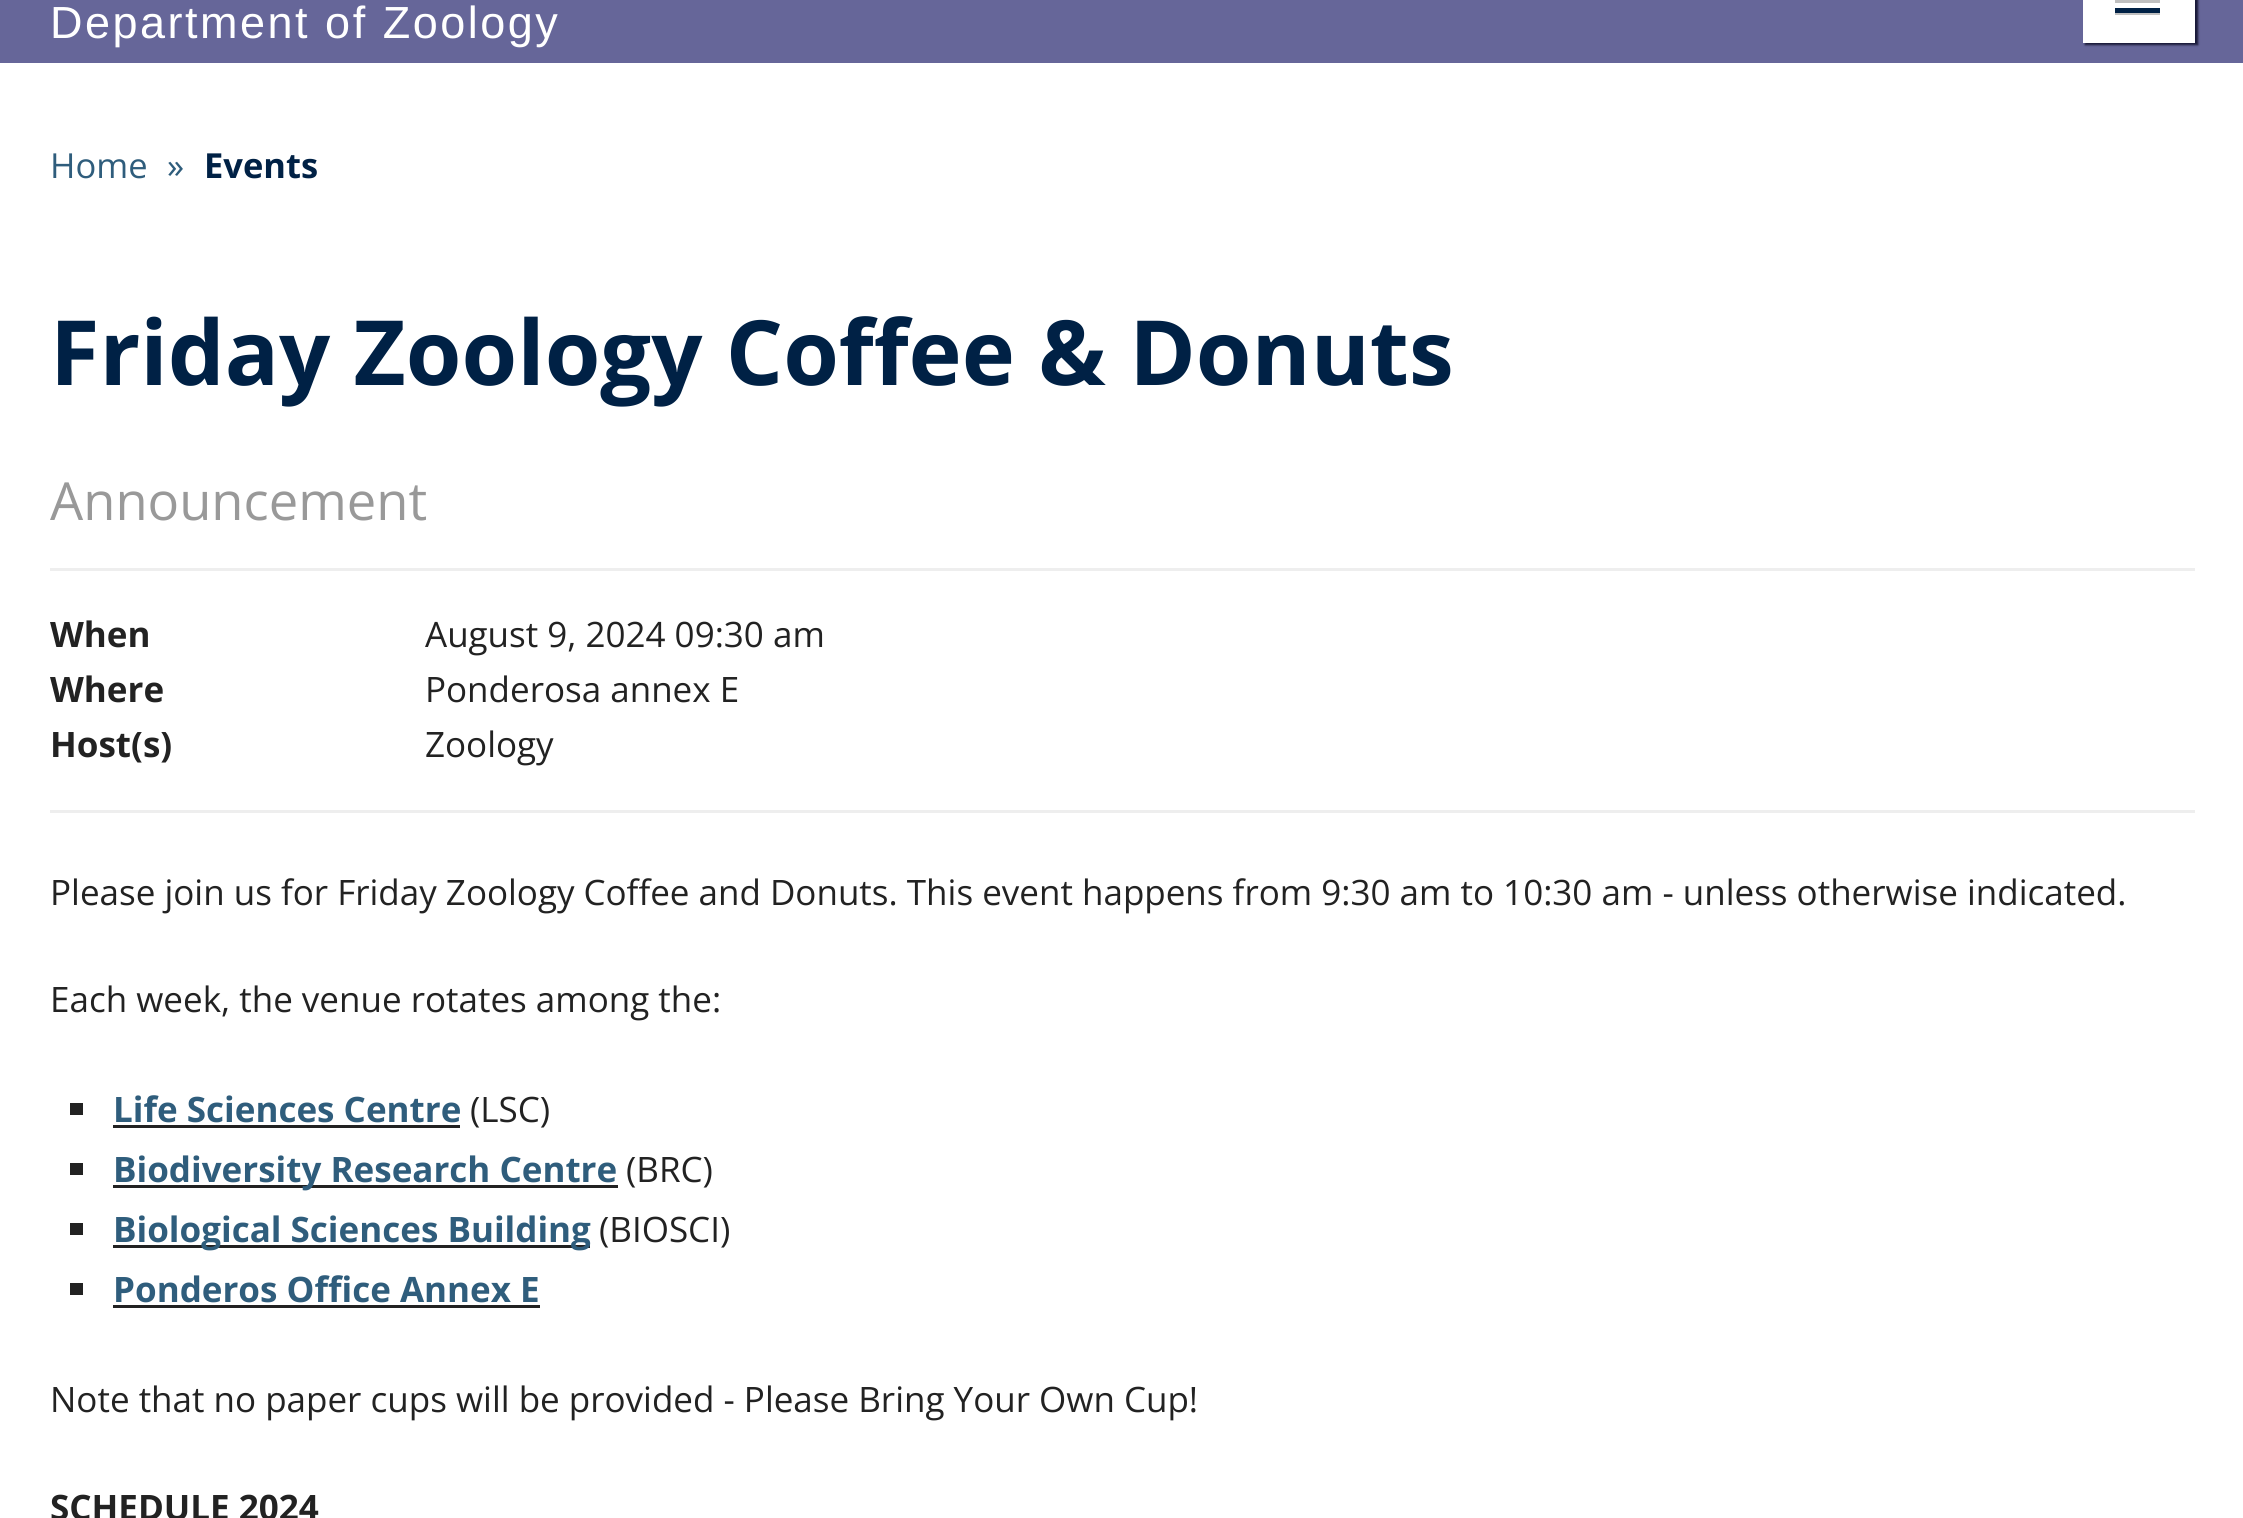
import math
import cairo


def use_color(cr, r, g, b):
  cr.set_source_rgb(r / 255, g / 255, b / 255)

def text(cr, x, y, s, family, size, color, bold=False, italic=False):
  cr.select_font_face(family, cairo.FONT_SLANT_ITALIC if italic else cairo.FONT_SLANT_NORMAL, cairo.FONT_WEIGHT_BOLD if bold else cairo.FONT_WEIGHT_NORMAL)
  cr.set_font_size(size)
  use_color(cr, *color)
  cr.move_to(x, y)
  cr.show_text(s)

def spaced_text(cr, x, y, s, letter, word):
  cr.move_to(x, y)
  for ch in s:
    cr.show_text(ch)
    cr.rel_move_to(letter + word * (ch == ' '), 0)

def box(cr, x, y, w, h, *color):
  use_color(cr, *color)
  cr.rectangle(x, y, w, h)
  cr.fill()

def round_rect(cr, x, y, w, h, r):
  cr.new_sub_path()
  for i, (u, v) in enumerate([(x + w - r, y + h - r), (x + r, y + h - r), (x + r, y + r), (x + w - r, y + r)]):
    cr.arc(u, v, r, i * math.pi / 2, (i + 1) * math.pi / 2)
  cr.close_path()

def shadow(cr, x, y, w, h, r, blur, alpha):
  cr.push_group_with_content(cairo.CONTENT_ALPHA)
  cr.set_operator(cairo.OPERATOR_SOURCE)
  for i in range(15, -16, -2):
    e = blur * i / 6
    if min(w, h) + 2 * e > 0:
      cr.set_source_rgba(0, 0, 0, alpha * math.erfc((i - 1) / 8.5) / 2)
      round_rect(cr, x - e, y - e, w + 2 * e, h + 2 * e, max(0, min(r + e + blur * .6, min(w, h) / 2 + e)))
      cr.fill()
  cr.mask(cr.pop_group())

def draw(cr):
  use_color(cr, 255, 255, 255)
  cr.paint()
  box(cr, 0, 0, 2243, 63, 102, 102, 153)
  use_color(cr, 25, 25, 56)
  shadow(cr, 2085, -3, 113, 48, 0, 1, 1)
  box(cr, 2083, 0, 112, 43, 255, 255, 255)
  box(cr, 2115, 0, 45, 3, 191, 191, 191)
  box(cr, 2115, 13, 45, 2, 191, 191, 191)
  box(cr, 2115, 8, 45, 5, 0, 33, 69)
  box(cr, 50, 568, 2145, 3, 238, 238, 238)
  box(cr, 50, 810, 2145, 3, 238, 238, 238)
  box(cr, 70, 1103, 13, 12, 34, 34, 34)
  box(cr, 113, 1125, 347, 3, 34, 34, 34)
  box(cr, 70, 1163, 13, 12, 34, 34, 34)
  box(cr, 113, 1185, 505, 3, 34, 34, 34)
  box(cr, 70, 1223, 13, 12, 34, 34, 34)
  box(cr, 113, 1245, 477, 3, 34, 34, 34)
  box(cr, 70, 1283, 13, 12, 34, 34, 34)
  box(cr, 113, 1305, 427, 3, 34, 34, 34)
  cr.select_font_face("Liberation Sans")
  cr.set_font_size(45)
  use_color(cr, 255, 255, 255)
  spaced_text(cr, 50, 38, "Department of Zoology", 2.5, 0)
  text(cr, 50, 178, "Home", "Open Sans", 34.5, (47, 93, 124))
  text(cr, 167, 178, "»", "Open Sans", 34.5, (47, 93, 124))
  text(cr, 204, 178, "Events", "Open Sans", 34.5, (0, 33, 69), bold=True)
  text(cr, 50, 385, "Friday Zoology Coffee & Donuts", "Open Sans", 90, (0, 33, 69), bold=True)
  text(cr, 50, 520, "Announcement", "Open Sans", 52.5, (153, 153, 153))
  text(cr, 50, 647, "When", "Open Sans", 35, (34, 34, 34), bold=True)
  text(cr, 425, 647, "August 9, 2024 09:30 am", "Open Sans", 35, (34, 34, 34))
  text(cr, 50, 702, "Where", "Open Sans", 35, (34, 34, 34), bold=True)
  text(cr, 425, 702, "Ponderosa annex E", "Open Sans", 35, (34, 34, 34))
  text(cr, 50, 757, "Host(s)", "Open Sans", 35, (34, 34, 34), bold=True)
  text(cr, 425, 757, "Zoology", "Open Sans", 35, (34, 34, 34))
  text(cr, 50, 905, "Please join us for Friday Zoology Coffee and Donuts. This event happens from 9:30 am to 10:30 am - unless otherwise indicated.", "Open Sans", 35, (34, 34, 34))
  text(cr, 50, 1012, "Each week, the venue rotates among the:", "Open Sans", 35, (34, 34, 34))
  text(cr, 113, 1122, "Life Sciences Centre", "Open Sans", 35, (47, 93, 124), bold=True)
  text(cr, 470, 1122, "(LSC)", "Open Sans", 35, (34, 34, 34))
  text(cr, 113, 1182, "Biodiversity Research Centre", "Open Sans", 35, (47, 93, 124), bold=True)
  text(cr, 626, 1182, "(BRC)", "Open Sans", 35, (34, 34, 34))
  text(cr, 113, 1242, "Biological Sciences Building", "Open Sans", 35, (47, 93, 124), bold=True)
  text(cr, 599, 1242, "(BIOSCI)", "Open Sans", 35, (34, 34, 34))
  text(cr, 113, 1302, "Ponderos Office Annex E", "Open Sans", 35, (47, 93, 124), bold=True)
  text(cr, 50, 1412, "Note that no paper cups will be provided - Please Bring Your Own Cup!", "Open Sans", 35, (34, 34, 34))
  text(cr, 50, 1520, "SCHEDULE 2024", "Open Sans", 35, (34, 34, 34), bold=True)


surface = cairo.ImageSurface(cairo.FORMAT_RGB24, 2243, 1518)
cr = cairo.Context(surface)
options = cairo.FontOptions()
options.set_hint_metrics(cairo.HINT_METRICS_OFF)
options.set_hint_style(cairo.HINT_STYLE_NONE)
cr.set_font_options(options)
cr.set_miter_limit(4)
draw(cr)
surface.write_to_png("out.png")
